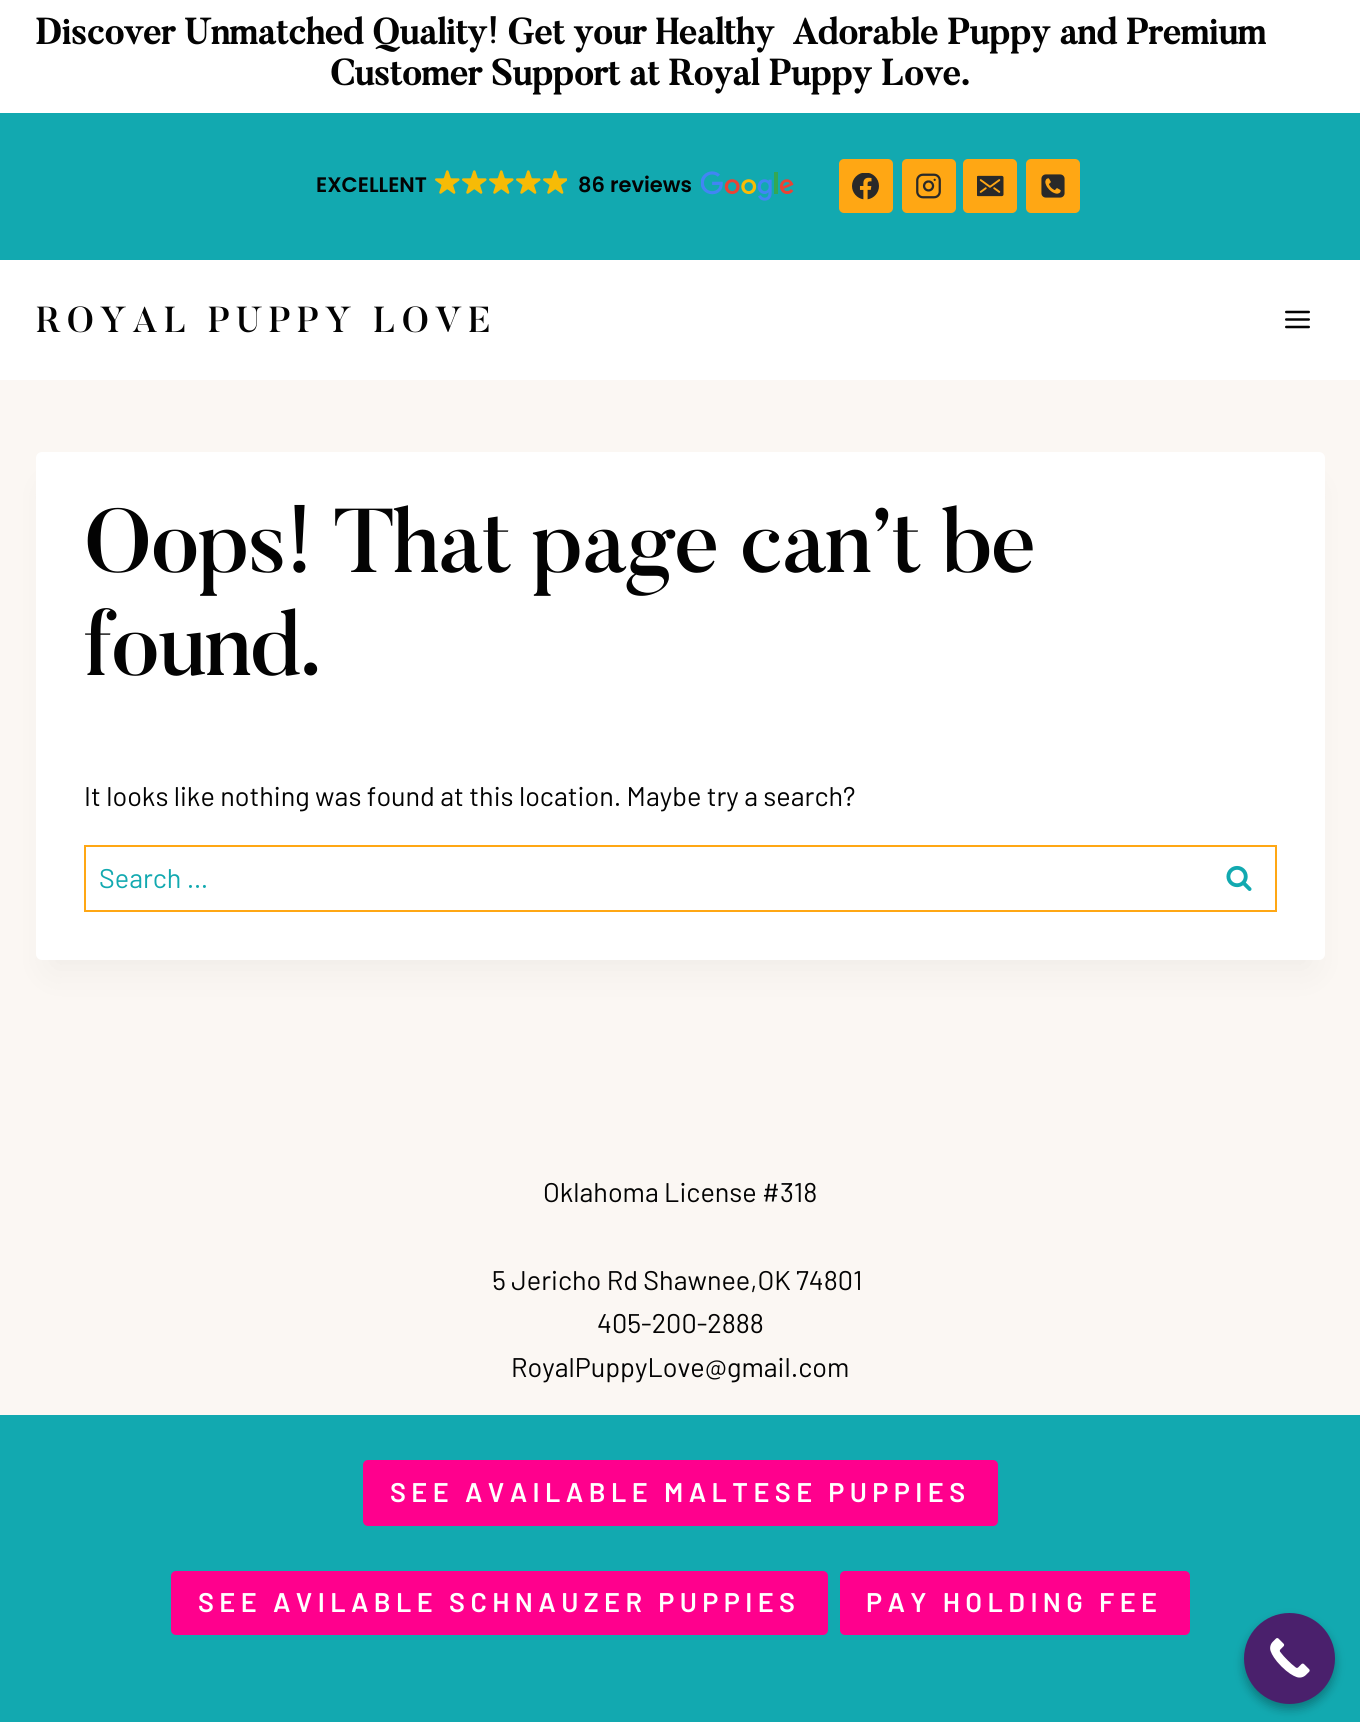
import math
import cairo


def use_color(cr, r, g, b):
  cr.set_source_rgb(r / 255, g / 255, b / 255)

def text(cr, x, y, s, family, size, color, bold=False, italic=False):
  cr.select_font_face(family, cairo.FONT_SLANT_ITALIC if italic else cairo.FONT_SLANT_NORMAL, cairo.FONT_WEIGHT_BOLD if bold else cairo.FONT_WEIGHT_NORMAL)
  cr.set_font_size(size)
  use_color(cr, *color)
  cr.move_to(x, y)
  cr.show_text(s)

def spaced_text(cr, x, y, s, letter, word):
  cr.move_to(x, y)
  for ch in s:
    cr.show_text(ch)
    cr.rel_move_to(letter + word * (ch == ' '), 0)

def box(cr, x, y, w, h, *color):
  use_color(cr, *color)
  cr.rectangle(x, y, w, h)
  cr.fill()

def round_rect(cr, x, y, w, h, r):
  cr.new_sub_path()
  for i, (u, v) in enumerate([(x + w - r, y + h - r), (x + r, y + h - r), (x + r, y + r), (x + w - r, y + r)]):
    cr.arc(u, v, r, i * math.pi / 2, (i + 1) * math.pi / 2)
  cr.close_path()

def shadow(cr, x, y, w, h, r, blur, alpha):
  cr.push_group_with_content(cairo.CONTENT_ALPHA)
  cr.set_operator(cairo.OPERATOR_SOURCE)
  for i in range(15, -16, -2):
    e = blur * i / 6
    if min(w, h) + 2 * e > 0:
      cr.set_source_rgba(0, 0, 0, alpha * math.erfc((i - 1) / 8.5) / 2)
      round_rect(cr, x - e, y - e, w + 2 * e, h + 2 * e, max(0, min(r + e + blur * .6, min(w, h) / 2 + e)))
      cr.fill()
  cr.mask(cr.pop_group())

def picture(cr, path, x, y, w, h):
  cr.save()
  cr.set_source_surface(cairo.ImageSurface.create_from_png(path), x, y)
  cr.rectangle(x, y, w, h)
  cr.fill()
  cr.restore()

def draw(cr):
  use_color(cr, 251, 247, 243)
  cr.paint()
  box(cr, 0, 0, 1360, 113, 255, 255, 255)
  box(cr, 0, 260, 1360, 120, 255, 255, 255)
  box(cr, 0, 113, 1360, 147, 18, 169, 176)
  picture(cr, "img_01.png", 435, 170, 25, 24)
  picture(cr, "img_01.png", 462, 170, 25, 24)
  picture(cr, "img_01.png", 489, 170, 25, 24)
  picture(cr, "img_01.png", 516, 170, 25, 24)
  picture(cr, "img_02.png", 543, 170, 24, 24)
  picture(cr, "img_03.png", 701, 171, 93, 30)
  use_color(cr, 255, 167, 20)
  round_rect(cr, 839, 159, 54, 54, 5)
  cr.fill()
  picture(cr, "img_04.png", 852, 173, 27, 27)
  round_rect(cr, 902, 159, 54, 54, 5)
  cr.fill()
  picture(cr, "img_05.png", 916, 173, 25, 26)
  round_rect(cr, 963, 159, 54, 54, 5)
  cr.fill()
  picture(cr, "img_06.png", 977, 175, 27, 22)
  round_rect(cr, 1026, 159, 54, 54, 5)
  cr.fill()
  picture(cr, "img_07.png", 1041, 174, 24, 24)
  picture(cr, "img_08.png", 1285, 310, 25, 19)
  use_color(cr, 0, 0, 0)
  shadow(cr, 51, 489, 1259, 479, 0, 19, 0.05)
  use_color(cr, 255, 255, 255)
  round_rect(cr, 36, 452, 1289, 508, 6)
  cr.fill()
  cr.rectangle(85, 846, 1191, 65)
  use_color(cr, 255, 167, 20)
  cr.stroke()
  picture(cr, "img_09.png", 1226, 865, 26, 26)
  box(cr, 0, 1415, 1360, 307, 18, 169, 176)
  use_color(cr, 255, 0, 141)
  round_rect(cr, 363, 1460, 635, 66, 5)
  cr.fill()
  round_rect(cr, 171, 1571, 657, 64, 5)
  cr.fill()
  round_rect(cr, 840, 1571, 350, 64, 5)
  cr.fill()
  use_color(cr, 0, 0, 0)
  shadow(cr, 1244, 1619, 91, 90, 45, 5, 0.3)
  use_color(cr, 74, 32, 108)
  cr.arc(1289.5, 1658.5, 45.5, 0, 2 * math.pi)
  cr.fill()
  picture(cr, "img_10.png", 1270, 1638, 40, 40)
  text(cr, 35, 44, "Discover Unmatched Quality! Get your Healthy  Adorable Puppy and Premium", "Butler", 36, (3, 3, 3), bold=True)
  text(cr, 330, 85, "Customer Support at Royal Puppy Love.", "Butler", 36, (3, 3, 3), bold=True)
  text(cr, 316, 192, "EXCELLENT", "Poppins SemiBold", 21, (3, 3, 3))
  text(cr, 578, 192, "86 reviews", "Poppins SemiBold", 21, (3, 3, 3))
  cr.select_font_face("Butler Medium")
  cr.set_font_size(36)
  spaced_text(cr, 36, 332, "ROYAL PUPPY LOVE", 6, 0)
  cr.set_font_size(90)
  spaced_text(cr, 84, 572, "Oops! That page can’t be", -1.8, 0)
  spaced_text(cr, 84, 675, "found.", -1.8, 0)
  text(cr, 84, 806, "It looks like nothing was found at this location. Maybe try a search?", "Barlow", 27, (3, 3, 3))
  text(cr, 99, 888, "Search …", "Barlow", 27, (18, 169, 176))
  text(cr, 543, 1202, "Oklahoma License #318", "Barlow", 27, (3, 3, 3))
  text(cr, 492, 1290, "5 Jericho Rd Shawnee,OK 74801", "Barlow", 27, (3, 3, 3))
  text(cr, 597, 1333, "405-200-2888", "Barlow", 27, (3, 3, 3))
  text(cr, 511, 1377, "RoyalPuppyLove@gmail.com", "Barlow", 27, (3, 3, 3))
  cr.select_font_face("Barlow SemiBold")
  use_color(cr, 255, 255, 255)
  spaced_text(cr, 390, 1502, "SEE AVAILABLE MALTESE PUPPIES", 5.4, 0)
  spaced_text(cr, 198, 1612, "SEE AVILABLE SCHNAUZER PUPPIES", 5.4, 0)
  spaced_text(cr, 866, 1612, "PAY HOLDING FEE", 5.4, 0)


surface = cairo.ImageSurface(cairo.FORMAT_RGB24, 1360, 1722)
cr = cairo.Context(surface)
options = cairo.FontOptions()
options.set_hint_metrics(cairo.HINT_METRICS_OFF)
options.set_hint_style(cairo.HINT_STYLE_NONE)
cr.set_font_options(options)
cr.set_miter_limit(4)
draw(cr)
surface.write_to_png("out.png")
